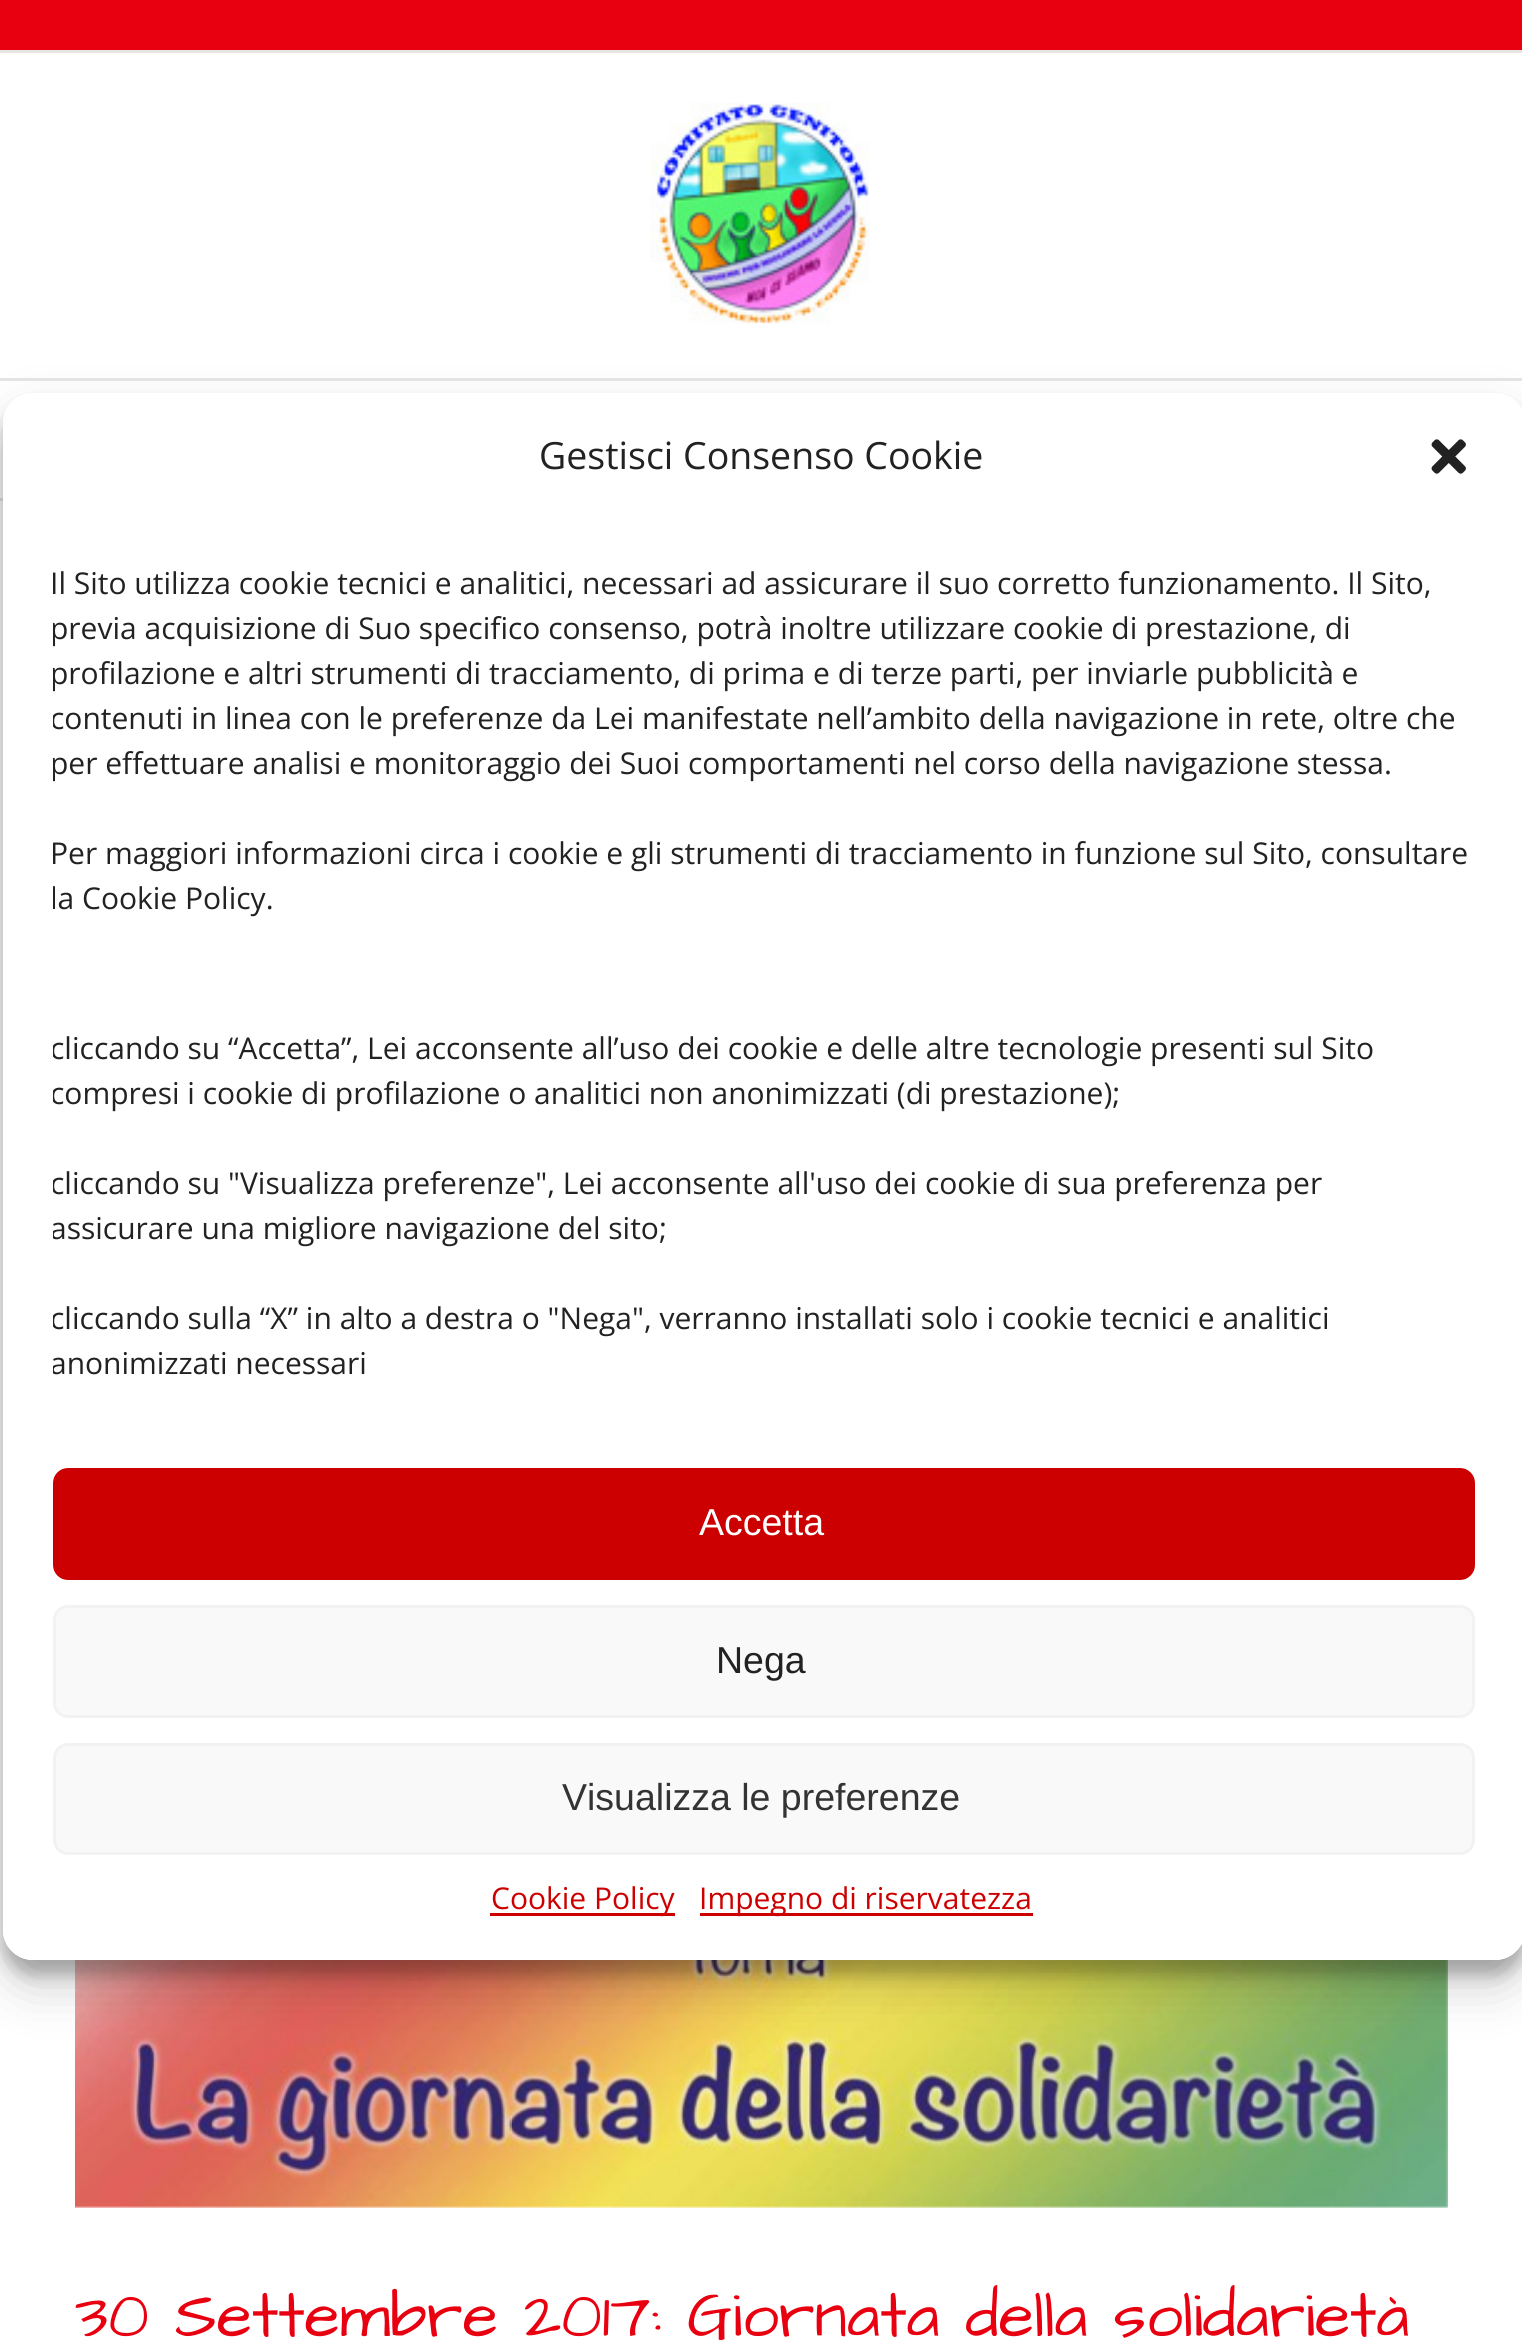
import math
import cairo


def use_color(cr, r, g, b):
  cr.set_source_rgb(r / 255, g / 255, b / 255)

def text(cr, x, y, s, family, size, color, bold=False, italic=False):
  cr.select_font_face(family, cairo.FONT_SLANT_ITALIC if italic else cairo.FONT_SLANT_NORMAL, cairo.FONT_WEIGHT_BOLD if bold else cairo.FONT_WEIGHT_NORMAL)
  cr.set_font_size(size)
  use_color(cr, *color)
  cr.move_to(x, y)
  cr.show_text(s)

def box(cr, x, y, w, h, *color):
  use_color(cr, *color)
  cr.rectangle(x, y, w, h)
  cr.fill()

def round_rect(cr, x, y, w, h, r):
  cr.new_sub_path()
  for i, (u, v) in enumerate([(x + w - r, y + h - r), (x + r, y + h - r), (x + r, y + r), (x + w - r, y + r)]):
    cr.arc(u, v, r, i * math.pi / 2, (i + 1) * math.pi / 2)
  cr.close_path()

def shadow(cr, x, y, w, h, r, blur, alpha):
  cr.push_group_with_content(cairo.CONTENT_ALPHA)
  cr.set_operator(cairo.OPERATOR_SOURCE)
  for i in range(15, -16, -2):
    e = blur * i / 6
    if min(w, h) + 2 * e > 0:
      cr.set_source_rgba(0, 0, 0, alpha * math.erfc((i - 1) / 8.5) / 2)
      round_rect(cr, x - e, y - e, w + 2 * e, h + 2 * e, max(0, min(r + e + blur * .6, min(w, h) / 2 + e)))
      cr.fill()
  cr.mask(cr.pop_group())

def picture(cr, path, x, y, w, h):
  cr.save()
  cr.set_source_surface(cairo.ImageSurface.create_from_png(path), x, y)
  cr.rectangle(x, y, w, h)
  cr.fill()
  cr.restore()

def draw(cr):
  use_color(cr, 255, 255, 255)
  cr.paint()
  box(cr, 0, 498, 3, 3, 229, 229, 229)
  picture(cr, "img_03.png", 75, 1960, 1373, 248)
  cr.save()
  cr.set_fill_rule(cairo.FILL_RULE_EVEN_ODD)
  cr.new_path()
  cr.move_to(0, 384)
  cr.line_to(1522, 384)
  cr.line_to(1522, 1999)
  cr.line_to(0, 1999)
  cr.close_path()
  cr.move_to(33, 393)
  cr.line_to(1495, 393)
  cr.curve_to(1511.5, 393, 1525, 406.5, 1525, 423)
  cr.line_to(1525, 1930)
  cr.curve_to(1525, 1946.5, 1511.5, 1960, 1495, 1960)
  cr.line_to(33, 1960)
  cr.curve_to(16.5, 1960, 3, 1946.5, 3, 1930)
  cr.line_to(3, 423)
  cr.curve_to(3, 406.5, 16.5, 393, 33, 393)
  cr.close_path()
  cr.clip()
  use_color(cr, 0, 0, 0)
  shadow(cr, 3, 408, 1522, 1567, 30, 7.5, 0.23)
  cr.restore()
  box(cr, 0, 378, 1522, 3, 229, 229, 229)
  cr.save()
  cr.set_fill_rule(cairo.FILL_RULE_EVEN_ODD)
  cr.new_path()
  cr.move_to(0, 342)
  cr.line_to(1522, 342)
  cr.line_to(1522, 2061)
  cr.line_to(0, 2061)
  cr.close_path()
  cr.move_to(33, 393)
  cr.line_to(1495, 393)
  cr.curve_to(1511.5, 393, 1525, 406.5, 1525, 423)
  cr.line_to(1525, 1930)
  cr.curve_to(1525, 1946.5, 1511.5, 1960, 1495, 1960)
  cr.line_to(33, 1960)
  cr.curve_to(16.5, 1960, 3, 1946.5, 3, 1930)
  cr.line_to(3, 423)
  cr.curve_to(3, 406.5, 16.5, 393, 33, 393)
  cr.close_path()
  cr.clip()
  use_color(cr, 0, 0, 0)
  shadow(cr, 3, 418, 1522, 1567, 30, 25, 0.19)
  cr.restore()
  use_color(cr, 255, 255, 255)
  round_rect(cr, 3, 393, 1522, 1567, 30)
  cr.fill()
  picture(cr, "img_01.png", 1431, 439, 35, 35)
  use_color(cr, 204, 0, 0)
  round_rect(cr, 54.5, 1469.5, 1419, 109, 13.5)
  cr.fill_preserve()
  cr.set_line_width(3)
  cr.stroke()
  use_color(cr, 249, 249, 249)
  round_rect(cr, 54.5, 1606.5, 1419, 110, 13.5)
  cr.fill_preserve()
  use_color(cr, 242, 242, 242)
  cr.stroke()
  use_color(cr, 249, 249, 249)
  round_rect(cr, 54.5, 1744.5, 1419, 109, 13.5)
  cr.fill_preserve()
  use_color(cr, 242, 242, 242)
  cr.stroke()
  box(cr, 490, 1913, 185, 3, 204, 0, 0)
  box(cr, 700, 1913, 333, 3, 204, 0, 0)
  box(cr, 0, 0, 1522, 50, 232, 0, 16)
  box(cr, 0, 50, 1522, 3, 229, 229, 229)
  picture(cr, "img_02.png", 650, 102, 220, 222)
  text(cr, 539, 469, "Gestisci Consenso Cookie", "Open Sans", 37.5, (34, 34, 34))
  cr.save()
  cr.rectangle(53, 533, 1422, 885)
  cr.clip()
  text(cr, 50, 594, "Il Sito utilizza cookie tecnici e analitici, necessari ad assicurare il suo corretto funzionamento. Il Sito,", "Open Sans", 30, (34, 34, 34))
  text(cr, 50, 639, "previa acquisizione di Suo specifico consenso, potrà inoltre utilizzare cookie di prestazione, di", "Open Sans", 30, (34, 34, 34))
  text(cr, 50, 684, "profilazione e altri strumenti di tracciamento, di prima e di terze parti, per inviarle pubblicità e", "Open Sans", 30, (34, 34, 34))
  text(cr, 50, 729, "contenuti in linea con le preferenze da Lei manifestate nell’ambito della navigazione in rete, oltre che", "Open Sans", 30, (34, 34, 34))
  text(cr, 50, 774, "per effettuare analisi e monitoraggio dei Suoi comportamenti nel corso della navigazione stessa.", "Open Sans", 30, (34, 34, 34))
  text(cr, 50, 864, "Per maggiori informazioni circa i cookie e gli strumenti di tracciamento in funzione sul Sito, consultare", "Open Sans", 30, (34, 34, 34))
  text(cr, 50, 909, "la Cookie Policy.", "Open Sans", 30, (34, 34, 34))
  text(cr, 50, 1059, "cliccando su “Accetta”, Lei acconsente all’uso dei cookie e delle altre tecnologie presenti sul Sito", "Open Sans", 30, (34, 34, 34))
  text(cr, 50, 1104, "compresi i cookie di profilazione o analitici non anonimizzati (di prestazione);", "Open Sans", 30, (34, 34, 34))
  text(cr, 50, 1194, "cliccando su \"Visualizza preferenze\", Lei acconsente all'uso dei cookie di sua preferenza per", "Open Sans", 30, (34, 34, 34))
  text(cr, 50, 1239, "assicurare una migliore navigazione del sito;", "Open Sans", 30, (34, 34, 34))
  text(cr, 50, 1329, "cliccando sulla “X” in alto a destra o \"Nega\", verranno installati solo i cookie tecnici e analitici", "Open Sans", 30, (34, 34, 34))
  text(cr, 50, 1374, "anonimizzati necessari", "Open Sans", 30, (34, 34, 34))
  cr.restore()
  text(cr, 699, 1535, "Accetta", "Liberation Sans", 37.5, (255, 255, 255))
  text(cr, 716, 1673, "Nega", "Liberation Sans", 37.5, (34, 34, 34))
  text(cr, 562, 1810, "Visualizza le preferenze", "Liberation Sans", 37.5, (51, 51, 51))
  text(cr, 491, 1909, "Cookie Policy", "Open Sans", 30, (204, 0, 0))
  text(cr, 699, 1909, "Impegno di riservatezza", "Open Sans", 30, (204, 0, 0))
  text(cr, 75, 2336, "30 Settembre 2017: Giornata della solidarietà", "Architects Daughter", 65, (232, 0, 16))


surface = cairo.ImageSurface(cairo.FORMAT_RGB24, 1522, 2350)
cr = cairo.Context(surface)
options = cairo.FontOptions()
options.set_hint_metrics(cairo.HINT_METRICS_OFF)
options.set_hint_style(cairo.HINT_STYLE_NONE)
cr.set_font_options(options)
cr.set_miter_limit(4)
draw(cr)
surface.write_to_png("out.png")
